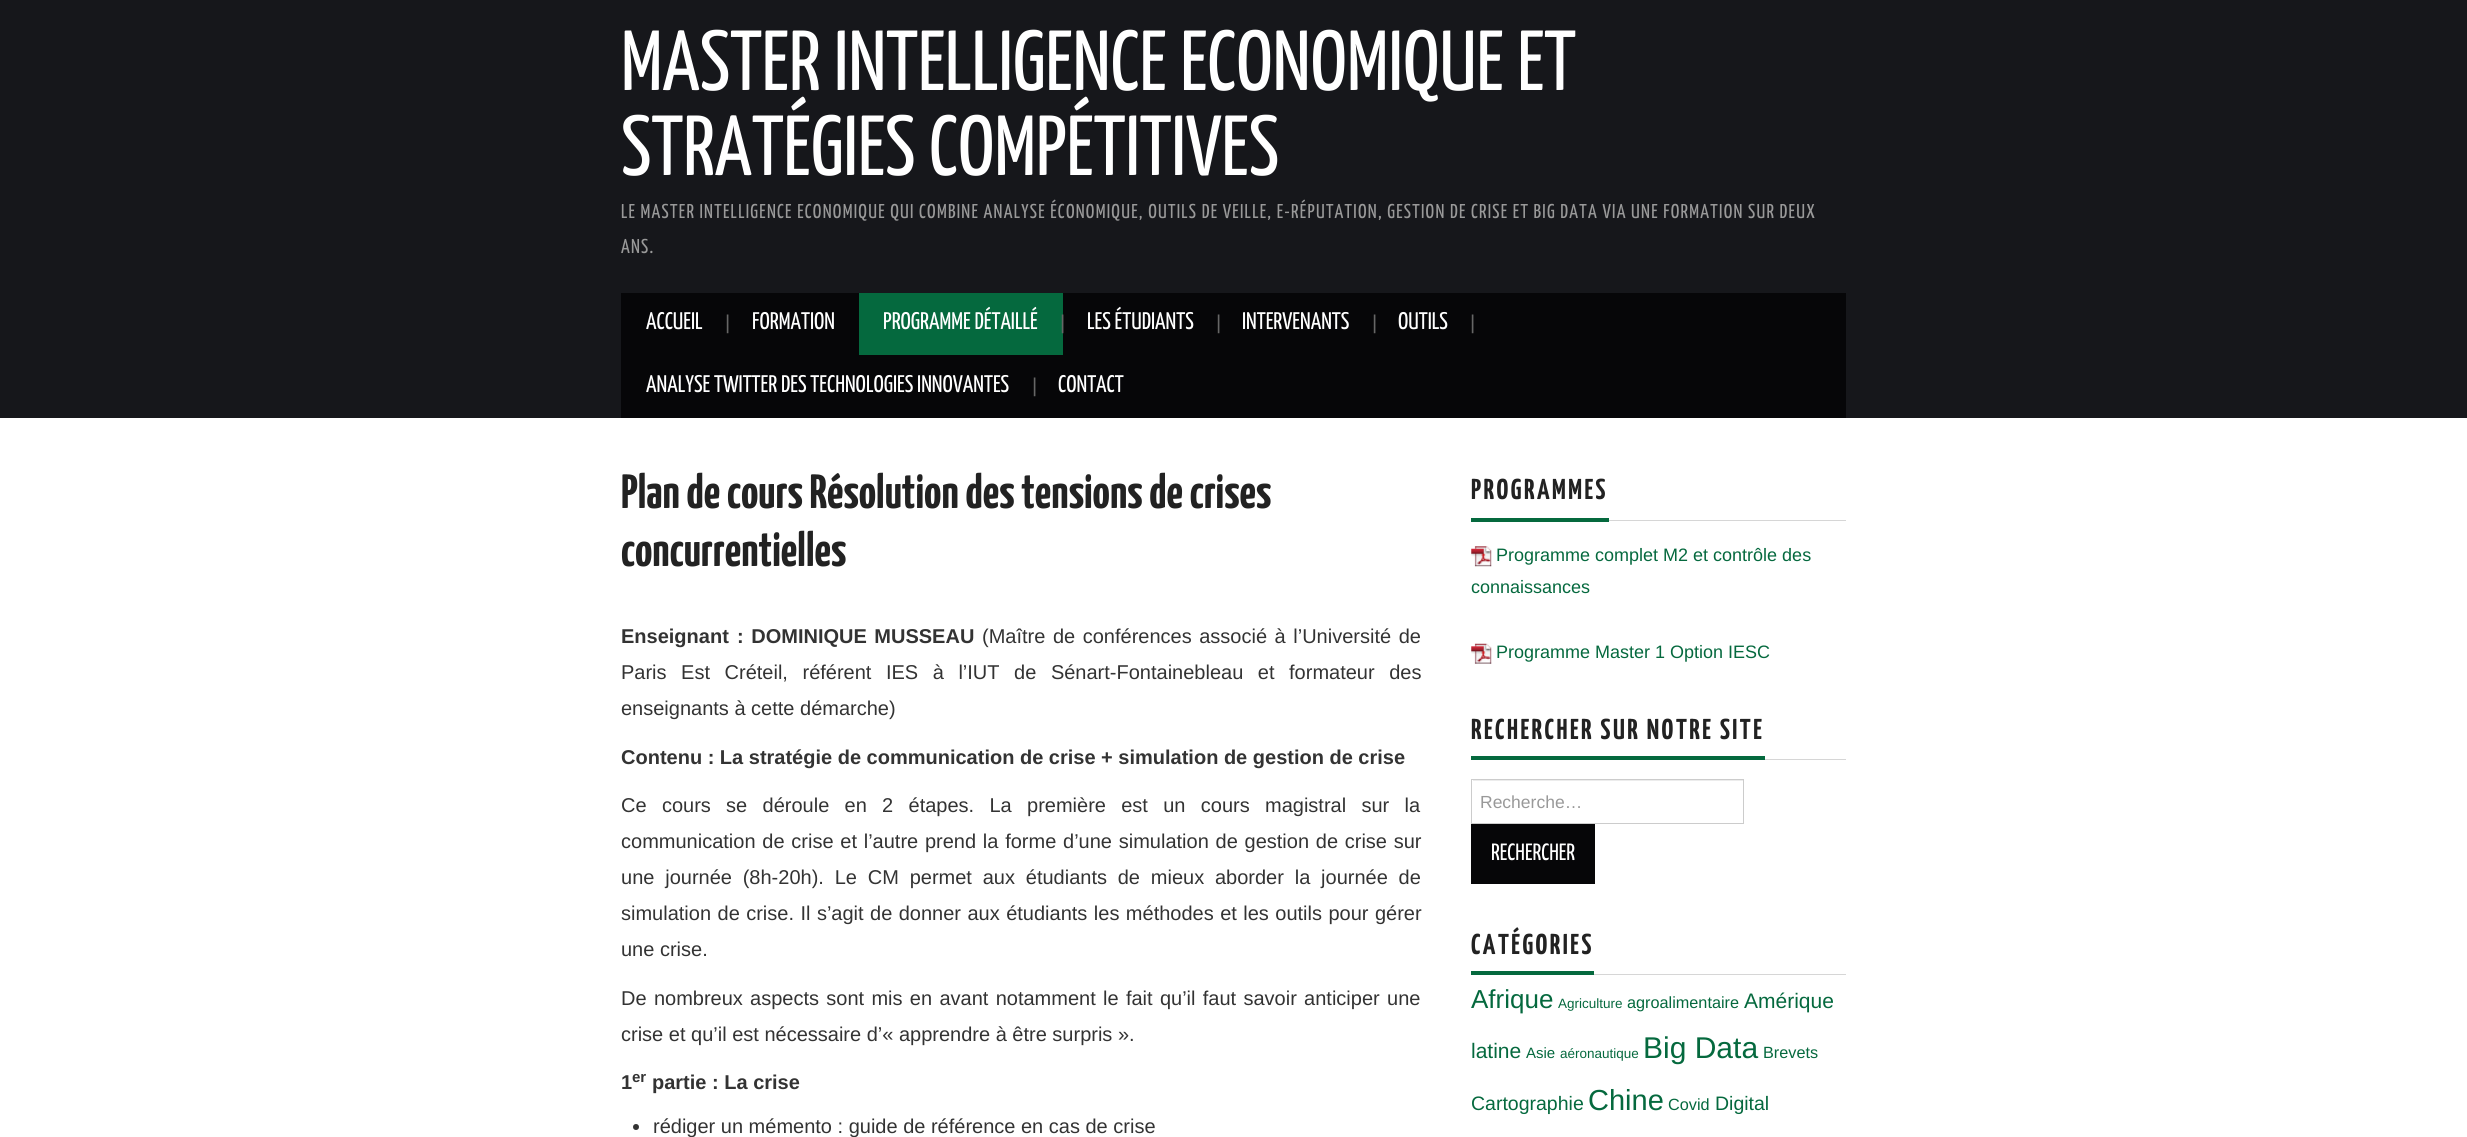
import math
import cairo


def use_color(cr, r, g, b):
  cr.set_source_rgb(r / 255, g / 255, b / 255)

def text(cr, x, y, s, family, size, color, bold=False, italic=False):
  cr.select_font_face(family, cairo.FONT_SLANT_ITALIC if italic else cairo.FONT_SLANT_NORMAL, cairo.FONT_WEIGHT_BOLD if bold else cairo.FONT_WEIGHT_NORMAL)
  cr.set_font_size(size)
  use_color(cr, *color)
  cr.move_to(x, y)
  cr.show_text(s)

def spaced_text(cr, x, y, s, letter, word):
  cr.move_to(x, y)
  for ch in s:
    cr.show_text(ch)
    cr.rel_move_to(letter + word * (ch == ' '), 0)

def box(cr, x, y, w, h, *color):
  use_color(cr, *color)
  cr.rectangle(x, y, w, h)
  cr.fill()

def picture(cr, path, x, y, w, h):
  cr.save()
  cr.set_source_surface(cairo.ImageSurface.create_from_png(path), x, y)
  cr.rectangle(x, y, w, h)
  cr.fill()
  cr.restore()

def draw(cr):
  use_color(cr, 255, 255, 255)
  cr.paint()
  box(cr, 0, 0, 2467, 418, 22, 23, 27)
  box(cr, 621, 293, 1225, 125, 6, 6, 8)
  box(cr, 859, 293, 204, 62, 5, 105, 62)
  use_color(cr, 51, 51, 51)
  cr.arc(636, 1127, 3, 0, 2 * math.pi)
  cr.fill()
  box(cr, 1609, 520, 237, 1, 214, 214, 214)
  box(cr, 1471, 518, 138, 4, 5, 105, 62)
  picture(cr, "img_01.png", 1471, 546, 21, 21)
  picture(cr, "img_02.png", 1471, 643, 21, 21)
  box(cr, 1765, 759, 81, 1, 214, 214, 214)
  box(cr, 1471, 756, 294, 4, 5, 105, 62)
  box(cr, 1473, 780, 270, 1, 236, 236, 236)
  cr.rectangle(1471.5, 779.5, 272, 44)
  use_color(cr, 204, 204, 204)
  cr.set_line_width(1)
  cr.stroke()
  box(cr, 1471, 824, 124, 60, 6, 6, 8)
  box(cr, 1594, 974, 252, 1, 214, 214, 214)
  box(cr, 1471, 971, 123, 4, 5, 105, 62)
  text(cr, 621, 90, "MASTER INTELLIGENCE ECONOMIQUE ET", "Yanone Kaffeesatz", 85, (255, 255, 255))
  text(cr, 621, 175, "STRATÉGIES COMPÉTITIVES", "Yanone Kaffeesatz", 85, (255, 255, 255))
  cr.set_font_size(20)
  use_color(cr, 153, 153, 153)
  spaced_text(cr, 621, 218, "LE MASTER INTELLIGENCE ECONOMIQUE QUI COMBINE ANALYSE ÉCONOMIQUE, OUTILS DE VEILLE, E-RÉPUTATION, GESTION DE CRISE ET BIG DATA VIA UNE FORMATION SUR DEUX", 1.25, 0)
  spaced_text(cr, 621, 253, "ANS.", 1.25, 0)
  text(cr, 646, 329, "ACCUEIL", "Yanone Kaffeesatz", 24, (255, 255, 255))
  text(cr, 725, 329, "|", "Liberation Sans", 20, (102, 102, 102))
  text(cr, 752, 329, "FORMATION", "Yanone Kaffeesatz", 24, (255, 255, 255))
  text(cr, 883, 329, "PROGRAMME DÉTAILLÉ", "Yanone Kaffeesatz", 24, (255, 255, 255))
  text(cr, 1060, 329, "|", "Liberation Sans", 20, (102, 102, 102))
  text(cr, 1087, 329, "LES ÉTUDIANTS", "Yanone Kaffeesatz", 24, (255, 255, 255))
  text(cr, 1216, 329, "|", "Liberation Sans", 20, (102, 102, 102))
  text(cr, 1242, 329, "INTERVENANTS", "Yanone Kaffeesatz", 24, (255, 255, 255))
  text(cr, 1372, 329, "|", "Liberation Sans", 20, (102, 102, 102))
  text(cr, 1398, 329, "OUTILS", "Yanone Kaffeesatz", 24, (255, 255, 255))
  text(cr, 1470, 329, "|", "Liberation Sans", 20, (102, 102, 102))
  text(cr, 646, 392, "ANALYSE TWITTER DES TECHNOLOGIES INNOVANTES", "Yanone Kaffeesatz", 24, (255, 255, 255))
  text(cr, 1032, 392, "|", "Liberation Sans", 20, (102, 102, 102))
  text(cr, 1058, 392, "CONTACT", "Yanone Kaffeesatz", 24, (255, 255, 255))
  text(cr, 621, 508, "Plan de cours Résolution des tensions de crises", "Yanone Kaffeesatz", 48, (34, 34, 34), bold=True)
  text(cr, 621, 566, "concurrentielles", "Yanone Kaffeesatz", 48, (34, 34, 34), bold=True)
  text(cr, 621, 643, "Enseignant", "Liberation Sans", 20, (51, 51, 51), bold=True)
  spaced_text(cr, 737, 643, ": DOMINIQUE MUSSEAU", 0, 2)
  cr.select_font_face("Liberation Sans")
  spaced_text(cr, 982, 643, "(Maître de conférences associé à l’Université de", 0, 2)
  spaced_text(cr, 621, 679, "Paris Est Créteil, référent IES à l’IUT de Sénart-Fontainebleau et formateur des", 0, 9)
  text(cr, 621, 715, "enseignants à cette démarche)", "Liberation Sans", 20, (51, 51, 51))
  text(cr, 621, 764, "Contenu : La stratégie de communication de crise + simulation de gestion de crise", "Liberation Sans", 20, (51, 51, 51), bold=True)
  cr.select_font_face("Liberation Sans")
  spaced_text(cr, 621, 812, "Ce cours se déroule en 2 étapes. La première est un cours magistral sur la", 0, 9.75)
  spaced_text(cr, 621, 848, "communication de crise et l’autre prend la forme d’une simulation de gestion de crise sur", 0, 1.2)
  spaced_text(cr, 621, 884, "une journée (8h-20h). Le CM permet aux étudiants de mieux aborder la journée de", 0, 5.25)
  spaced_text(cr, 621, 920, "simulation de crise. Il s’agit de donner aux étudiants les méthodes et les outils pour gérer", 0, 0.9)
  text(cr, 621, 956, "une crise.", "Liberation Sans", 20, (51, 51, 51))
  spaced_text(cr, 621, 1005, "De nombreux aspects sont mis en avant notamment le fait qu’il faut savoir anticiper une", 0, 1.75)
  text(cr, 621, 1041, "crise et qu’il est nécessaire d’« apprendre à être surpris ».", "Liberation Sans", 20, (51, 51, 51))
  text(cr, 621, 1089, "1", "Liberation Sans", 20, (51, 51, 51), bold=True)
  text(cr, 632, 1082, "er", "Liberation Sans", 15, (51, 51, 51), bold=True)
  text(cr, 652, 1089, "partie : La crise", "Liberation Sans", 20, (51, 51, 51), bold=True)
  text(cr, 653, 1133, "rédiger un mémento : guide de référence en cas de crise", "Liberation Sans", 20, (51, 51, 51))
  cr.select_font_face("Yanone Kaffeesatz", cairo.FONT_SLANT_NORMAL, cairo.FONT_WEIGHT_BOLD)
  cr.set_font_size(28.75)
  use_color(cr, 34, 34, 34)
  spaced_text(cr, 1471, 499, "PROGRAMMES", 2.5, 0)
  text(cr, 1496, 561, "Programme complet M2 et contrôle des", "Liberation Sans", 18, (5, 105, 62))
  text(cr, 1471, 593, "connaissances", "Liberation Sans", 18, (5, 105, 62))
  text(cr, 1496, 658, "Programme Master 1 Option IESC", "Liberation Sans", 18, (5, 105, 62))
  cr.select_font_face("Yanone Kaffeesatz", cairo.FONT_SLANT_NORMAL, cairo.FONT_WEIGHT_BOLD)
  cr.set_font_size(28.75)
  use_color(cr, 34, 34, 34)
  spaced_text(cr, 1471, 739, "RECHERCHER SUR NOTRE SITE", 2.5, 0)
  text(cr, 1480, 808, "Recherche…", "Liberation Sans", 17.5, (153, 153, 153))
  text(cr, 1491, 860, "RECHERCHER", "Yanone Kaffeesatz", 23.5, (255, 255, 255))
  cr.select_font_face("Yanone Kaffeesatz", cairo.FONT_SLANT_NORMAL, cairo.FONT_WEIGHT_BOLD)
  cr.set_font_size(28.75)
  use_color(cr, 34, 34, 34)
  spaced_text(cr, 1471, 954, "CATÉGORIES", 2.5, 0)
  text(cr, 1471, 1008, "Afrique", "Liberation Sans", 26, (5, 105, 62))
  text(cr, 1558, 1008, "Agriculture", "Liberation Sans", 13.5, (5, 105, 62))
  text(cr, 1627, 1008, "agroalimentaire", "Liberation Sans", 16.25, (5, 105, 62))
  text(cr, 1744, 1008, "Amérique", "Liberation Sans", 21, (5, 105, 62))
  text(cr, 1471, 1058, "latine", "Liberation Sans", 21, (5, 105, 62))
  text(cr, 1526, 1058, "Asie", "Liberation Sans", 15, (5, 105, 62))
  text(cr, 1560, 1058, "aéronautique", "Liberation Sans", 13.5, (5, 105, 62))
  text(cr, 1643, 1058, "Big Data", "Liberation Sans", 30, (5, 105, 62))
  text(cr, 1763, 1058, "Brevets", "Liberation Sans", 16.25, (5, 105, 62))
  text(cr, 1471, 1110, "Cartographie", "Liberation Sans", 19.5, (5, 105, 62))
  text(cr, 1588, 1110, "Chine", "Liberation Sans", 29, (5, 105, 62))
  text(cr, 1668, 1110, "Covid", "Liberation Sans", 16.25, (5, 105, 62))
  text(cr, 1715, 1110, "Digital", "Liberation Sans", 19.5, (5, 105, 62))


surface = cairo.ImageSurface(cairo.FORMAT_RGB24, 2467, 1137)
cr = cairo.Context(surface)
options = cairo.FontOptions()
options.set_hint_metrics(cairo.HINT_METRICS_OFF)
options.set_hint_style(cairo.HINT_STYLE_NONE)
cr.set_font_options(options)
cr.set_miter_limit(4)
draw(cr)
surface.write_to_png("out.png")
